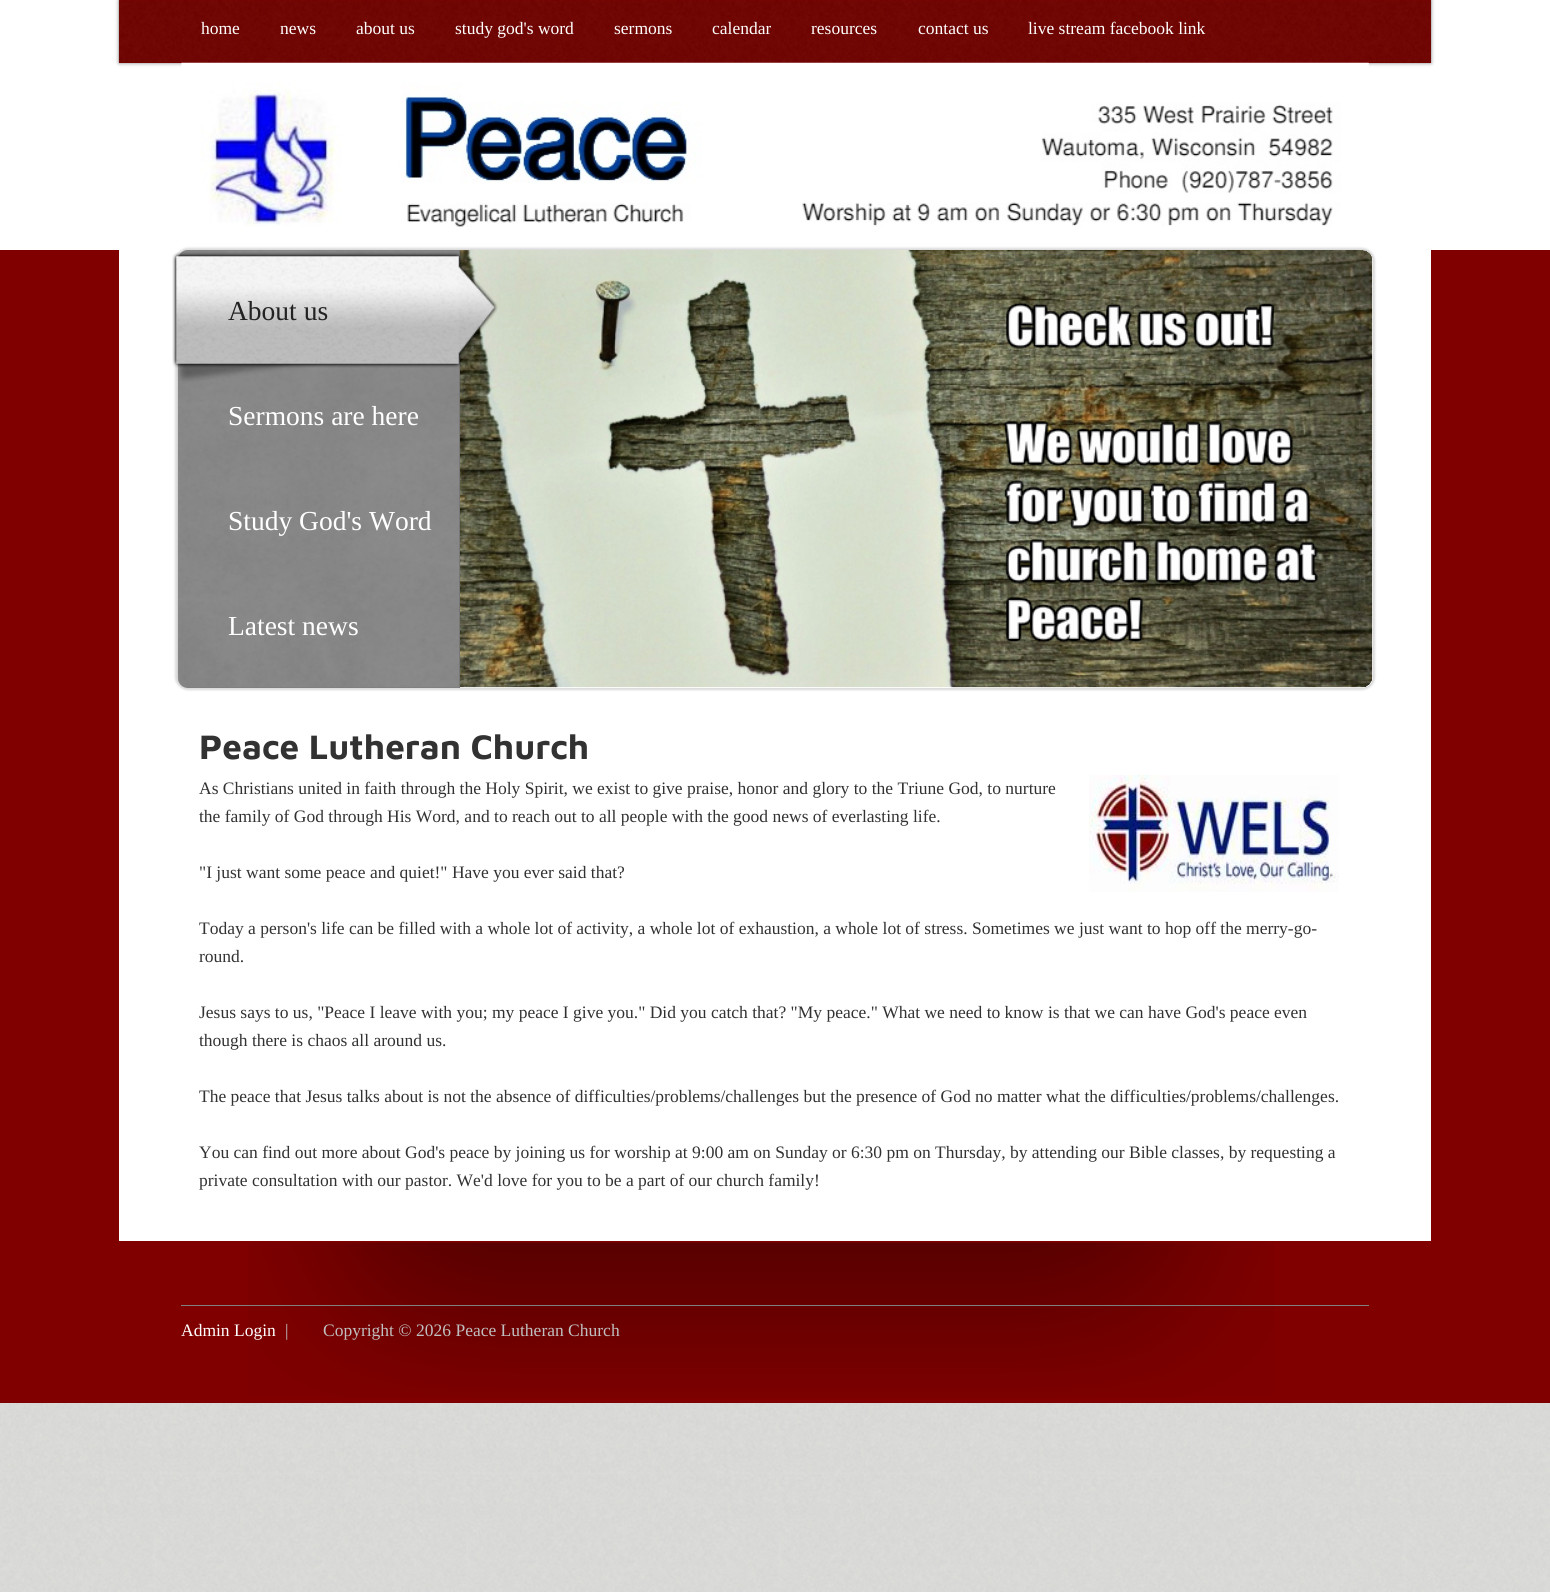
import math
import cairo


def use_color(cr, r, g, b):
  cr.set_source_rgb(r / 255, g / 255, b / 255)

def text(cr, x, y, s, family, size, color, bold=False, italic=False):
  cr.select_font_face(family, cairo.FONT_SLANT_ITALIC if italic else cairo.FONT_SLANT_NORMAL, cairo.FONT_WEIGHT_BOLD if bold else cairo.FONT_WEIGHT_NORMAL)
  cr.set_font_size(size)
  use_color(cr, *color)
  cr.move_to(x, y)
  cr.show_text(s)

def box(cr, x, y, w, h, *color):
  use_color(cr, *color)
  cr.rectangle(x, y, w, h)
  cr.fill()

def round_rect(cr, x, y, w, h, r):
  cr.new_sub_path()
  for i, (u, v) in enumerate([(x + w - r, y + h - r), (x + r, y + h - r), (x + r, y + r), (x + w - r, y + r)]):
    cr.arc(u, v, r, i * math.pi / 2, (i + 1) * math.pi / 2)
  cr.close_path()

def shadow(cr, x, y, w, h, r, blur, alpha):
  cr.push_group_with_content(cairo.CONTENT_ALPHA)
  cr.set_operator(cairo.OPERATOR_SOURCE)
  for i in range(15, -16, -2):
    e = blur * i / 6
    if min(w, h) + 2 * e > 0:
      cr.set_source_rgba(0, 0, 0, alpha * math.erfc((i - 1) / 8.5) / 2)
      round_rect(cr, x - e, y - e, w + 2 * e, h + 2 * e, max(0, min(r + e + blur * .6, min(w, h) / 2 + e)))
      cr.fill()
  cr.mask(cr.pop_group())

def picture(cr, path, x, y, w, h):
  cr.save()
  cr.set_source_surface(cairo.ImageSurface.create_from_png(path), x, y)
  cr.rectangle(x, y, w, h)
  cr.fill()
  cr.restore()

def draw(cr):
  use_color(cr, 255, 255, 255)
  cr.paint()
  picture(cr, "img_01.png", 0, 1403, 1550, 189)
  box(cr, 0, 250, 1550, 1153, 128, 0, 0)
  use_color(cr, 0, 0, 0)
  shadow(cr, 119, 0, 1312, 63, 0, 2, 0.5)
  box(cr, 119, 0, 1312, 63, 128, 0, 0)
  picture(cr, "img_02.png", 118, 0, 1314, 63)
  picture(cr, "img_03.png", 181, 62, 1188, 165)
  box(cr, 119, 250, 1312, 991, 255, 255, 255)
  use_color(cr, 0, 0, 0)
  shadow(cr, 175, 248, 1200, 442, 13, 1, 0.15)
  use_color(cr, 128, 128, 128)
  round_rect(cr, 178, 250, 1195, 438, 10)
  cr.fill()
  picture(cr, "img_04.png", 177, 250, 1195, 437)
  use_color(cr, 255, 255, 255)
  cr.new_path()
  cr.move_to(459, 250)
  cr.line_to(1363, 250)
  cr.curve_to(1368.5, 250, 1373, 254.5, 1373, 260)
  cr.line_to(1373, 678)
  cr.curve_to(1373, 683.5, 1368.5, 688, 1363, 688)
  cr.line_to(459, 688)
  cr.close_path()
  cr.fill()
  box(cr, 459, 250, 1, 438, 119, 119, 119)
  picture(cr, "img_06.png", 460, 250, 913, 438)
  picture(cr, "img_05.png", 172, 252, 326, 130)
  picture(cr, "img_07.png", 1089, 775, 250, 117)
  picture(cr, "img_08.png", 248, 1242, 1026, 156)
  box(cr, 181, 1305, 1188, 1, 128, 128, 128)
  text(cr, 201, 34, "home", "Liberation Serif", 17.5, (255, 255, 255))
  text(cr, 280, 34, "news", "Liberation Serif", 17.5, (255, 255, 255))
  text(cr, 356, 34, "about us", "Liberation Serif", 17.5, (255, 255, 255))
  text(cr, 455, 34, "study god's word", "Liberation Serif", 17.5, (255, 255, 255))
  text(cr, 614, 34, "sermons", "Liberation Serif", 17.5, (255, 255, 255))
  text(cr, 712, 34, "calendar", "Liberation Serif", 17.5, (255, 255, 255))
  text(cr, 811, 34, "resources", "Liberation Serif", 17.5, (255, 255, 255))
  text(cr, 918, 34, "contact us", "Liberation Serif", 17.5, (255, 255, 255))
  text(cr, 1028, 34, "live stream facebook link", "Liberation Serif", 17.5, (255, 255, 255))
  text(cr, 228, 320, "About us", "Liberation Serif", 27.5, (34, 34, 34))
  text(cr, 228, 425, "Sermons are here", "Liberation Serif", 27.5, (255, 255, 255))
  text(cr, 228, 530, "Study God's Word", "Liberation Serif", 27.5, (255, 255, 255))
  text(cr, 228, 635, "Latest news", "Liberation Serif", 27.5, (255, 255, 255))
  text(cr, 199, 759, "Peace Lutheran Church", "Maven Pro", 35, (50, 50, 50), bold=True)
  text(cr, 199, 794, "As Christians united in faith through the Holy Spirit, we exist to give praise, honor and glory to the Triune God, to nurture", "Liberation Serif", 17.5, (50, 50, 50))
  text(cr, 199, 822, "the family of God through His Word, and to reach out to all people with the good news of everlasting life.", "Liberation Serif", 17.5, (50, 50, 50))
  text(cr, 199, 878, "\"I just want some peace and quiet!\" Have you ever said that?", "Liberation Serif", 17.5, (50, 50, 50))
  text(cr, 199, 934, "Today a person's life can be filled with a whole lot of activity, a whole lot of exhaustion, a whole lot of stress. Sometimes we just want to hop off the merry-go-", "Liberation Serif", 17.5, (50, 50, 50))
  text(cr, 199, 962, "round.", "Liberation Serif", 17.5, (50, 50, 50))
  text(cr, 199, 1018, "Jesus says to us, \"Peace I leave with you; my peace I give you.\" Did you catch that? \"My peace.\" What we need to know is that we can have God's peace even", "Liberation Serif", 17.5, (50, 50, 50))
  text(cr, 199, 1046, "though there is chaos all around us.", "Liberation Serif", 17.5, (50, 50, 50))
  text(cr, 199, 1102, "The peace that Jesus talks about is not the absence of difficulties/problems/challenges but the presence of God no matter what the difficulties/problems/challenges.", "Liberation Serif", 17.5, (50, 50, 50))
  text(cr, 199, 1158, "You can find out more about God's peace by joining us for worship at 9:00 am on Sunday or 6:30 pm on Thursday, by attending our Bible classes, by requesting a", "Liberation Serif", 17.5, (50, 50, 50))
  text(cr, 199, 1186, "private consultation with our pastor. We'd love for you to be a part of our church family!", "Liberation Serif", 17.5, (50, 50, 50))
  text(cr, 181, 1336, "Admin Login", "Liberation Serif", 17.5, (255, 255, 255))
  text(cr, 285, 1336, "|", "Liberation Serif", 17.5, (192, 192, 192))
  text(cr, 323, 1336, "Copyright © 2026 Peace Lutheran Church", "Liberation Serif", 17.5, (192, 192, 192))


surface = cairo.ImageSurface(cairo.FORMAT_RGB24, 1550, 1592)
cr = cairo.Context(surface)
options = cairo.FontOptions()
options.set_hint_metrics(cairo.HINT_METRICS_OFF)
options.set_hint_style(cairo.HINT_STYLE_NONE)
cr.set_font_options(options)
cr.set_miter_limit(4)
draw(cr)
surface.write_to_png("out.png")
